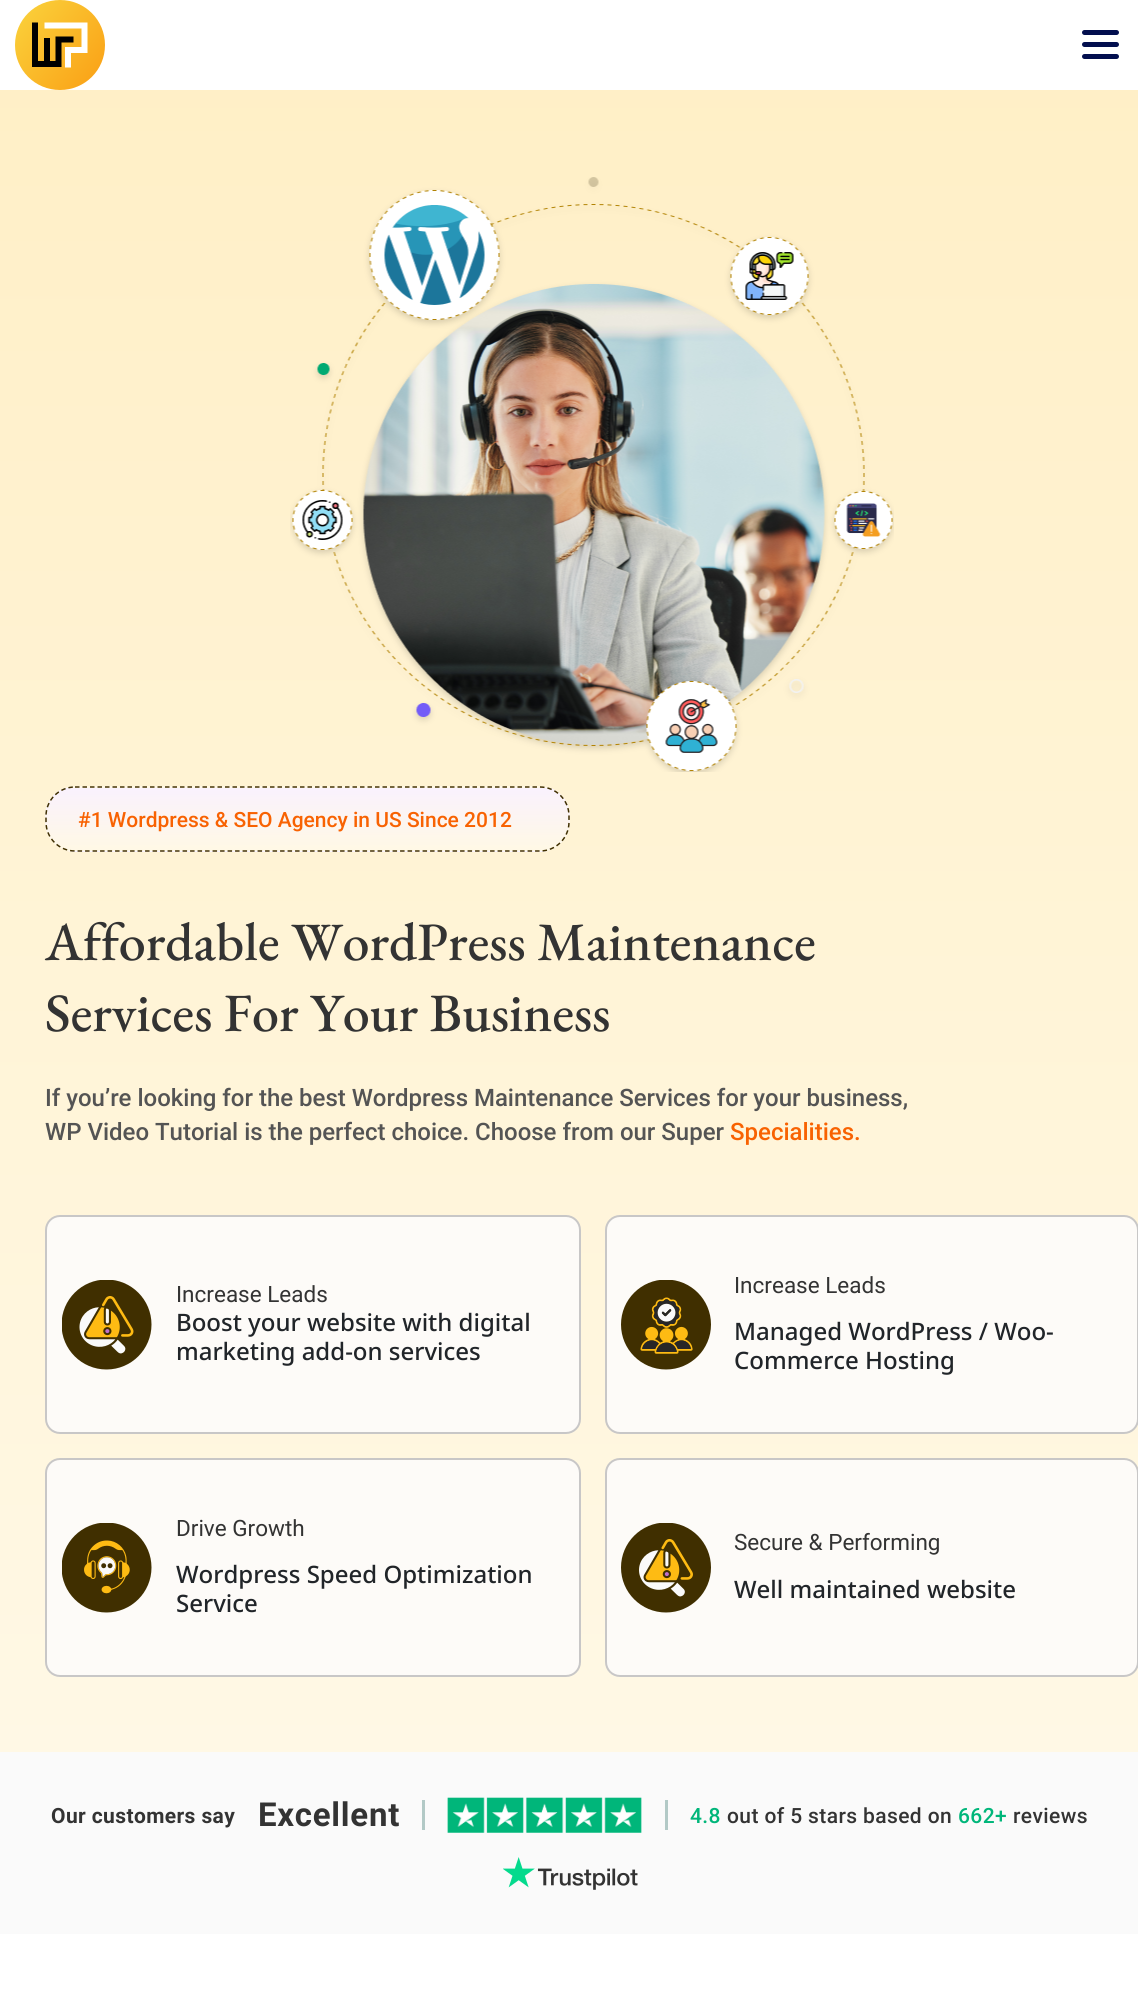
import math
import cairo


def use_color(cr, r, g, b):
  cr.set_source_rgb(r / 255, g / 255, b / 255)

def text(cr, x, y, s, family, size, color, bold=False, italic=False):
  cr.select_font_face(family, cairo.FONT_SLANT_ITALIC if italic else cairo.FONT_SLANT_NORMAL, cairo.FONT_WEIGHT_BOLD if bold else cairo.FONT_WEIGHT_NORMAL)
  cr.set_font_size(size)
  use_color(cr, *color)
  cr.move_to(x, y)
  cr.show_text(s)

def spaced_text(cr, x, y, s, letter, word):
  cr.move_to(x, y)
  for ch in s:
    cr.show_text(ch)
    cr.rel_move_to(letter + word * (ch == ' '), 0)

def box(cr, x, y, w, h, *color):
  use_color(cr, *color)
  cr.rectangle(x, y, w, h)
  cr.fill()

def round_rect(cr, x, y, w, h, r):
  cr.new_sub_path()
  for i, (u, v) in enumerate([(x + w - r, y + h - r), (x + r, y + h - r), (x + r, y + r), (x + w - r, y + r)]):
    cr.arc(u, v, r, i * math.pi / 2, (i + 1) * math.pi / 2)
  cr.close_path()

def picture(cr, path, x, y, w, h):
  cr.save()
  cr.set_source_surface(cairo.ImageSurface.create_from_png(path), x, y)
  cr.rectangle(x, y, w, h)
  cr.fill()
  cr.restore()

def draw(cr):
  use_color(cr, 255, 255, 255)
  cr.paint()
  gradient = cairo.LinearGradient(25, 17, 95, 73)
  gradient.add_color_stop_rgba(0, 0.98, 0.8, 0.216, 1)
  gradient.add_color_stop_rgba(1, 0.98, 0.651, 0.102, 1)
  cr.set_source(gradient)
  cr.new_path()
  cr.move_to(60, 90)
  cr.curve_to(85, 90, 105, 70, 105, 45)
  cr.curve_to(105, 20, 85, 0, 60, 0)
  cr.curve_to(35, 0, 15, 20, 15, 45)
  cr.curve_to(15, 70, 35, 90, 60, 90)
  cr.close_path()
  cr.fill()
  cr.new_path()
  cr.move_to(35, 22.5)
  cr.line_to(35, 64)
  cr.line_to(58.5, 64)
  cr.line_to(58.5, 39.5)
  cr.line_to(73.5, 39.5)
  use_color(cr, 0, 0, 0)
  cr.set_line_width(6)
  cr.stroke()
  box(cr, 44, 38, 6, 25, 0, 0, 0)
  cr.new_path()
  cr.move_to(44.5, 25.5)
  cr.line_to(84.5, 25.5)
  cr.line_to(84.5, 50)
  cr.line_to(68, 50)
  cr.line_to(68, 67.5)
  use_color(cr, 255, 255, 255)
  cr.stroke()
  use_color(cr, 2, 14, 78)
  round_rect(cr, 1082, 30, 37, 5, 2.5)
  cr.fill()
  round_rect(cr, 1082, 42, 37, 5, 2.5)
  cr.fill()
  round_rect(cr, 1082, 54, 37, 5, 2.5)
  cr.fill()
  gradient = cairo.LinearGradient(569, 1752, 569, 0)
  gradient.add_color_stop_rgba(0, 1, 0.973, 0.898, 1)
  gradient.add_color_stop_rgba(1, 1, 0.937, 0.773, 1)
  cr.set_source(gradient)
  cr.rectangle(0, 90, 1138, 1662)
  cr.fill()
  picture(cr, "img_01.png", 290, 177, 604, 595)
  cr.save()
  round_rect(cr, 45, 786, 525, 66, 30)
  cr.clip()
  gradient = cairo.LinearGradient(308, 725, 308, 788)
  gradient.add_color_stop_rgba(0.03, 0.98, 0.949, 0.992, 1)
  gradient.add_color_stop_rgba(1, 1, 0.973, 0.898, 1)
  cr.set_source(gradient)
  cr.rectangle(64, 786, 487, 2)
  cr.fill()
  gradient = cairo.LinearGradient(308, 788, 308, 851)
  gradient.add_color_stop_rgba(0.03, 0.98, 0.949, 0.992, 1)
  gradient.add_color_stop_rgba(1, 1, 0.973, 0.898, 1)
  cr.set_source(gradient)
  cr.rectangle(45, 788, 525, 63)
  cr.fill()
  gradient = cairo.LinearGradient(308, 851, 308, 914)
  gradient.add_color_stop_rgba(0.03, 0.98, 0.949, 0.992, 1)
  gradient.add_color_stop_rgba(1, 1, 0.973, 0.902, 1)
  cr.set_source(gradient)
  cr.rectangle(67, 851, 481, 1)
  cr.fill()
  cr.restore()
  cr.new_path()
  cr.move_to(75, 787)
  cr.line_to(540, 787)
  cr.curve_to(556, 787, 569, 800, 569, 816)
  cr.line_to(569, 822)
  cr.curve_to(569, 838, 556, 851, 540, 851)
  cr.line_to(75, 851)
  cr.curve_to(59, 851, 46, 838, 46, 822)
  cr.line_to(46, 816)
  cr.curve_to(46, 800, 59, 787, 75, 787)
  cr.close_path()
  use_color(cr, 64, 47, 0)
  cr.set_line_width(1.5)
  cr.set_dash([4.5, 3])
  cr.stroke()
  use_color(cr, 253, 251, 248)
  round_rect(cr, 46, 1216, 534, 217, 14)
  cr.fill_preserve()
  use_color(cr, 200, 199, 199)
  cr.set_line_width(2)
  cr.set_dash([])
  cr.stroke()
  picture(cr, "img_02.png", 62, 1280, 90, 90)
  use_color(cr, 253, 251, 248)
  round_rect(cr, 606, 1216, 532, 217, 14)
  cr.fill_preserve()
  use_color(cr, 200, 199, 199)
  cr.stroke()
  picture(cr, "img_03.png", 621, 1280, 90, 90)
  use_color(cr, 253, 251, 248)
  round_rect(cr, 46, 1459, 534, 217, 14)
  cr.fill_preserve()
  use_color(cr, 200, 199, 199)
  cr.stroke()
  picture(cr, "img_04.png", 62, 1523, 90, 90)
  use_color(cr, 253, 251, 248)
  round_rect(cr, 606, 1459, 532, 217, 14)
  cr.fill_preserve()
  use_color(cr, 200, 199, 199)
  cr.stroke()
  picture(cr, "img_05.png", 621, 1523, 90, 90)
  box(cr, 0, 1752, 1138, 182, 250, 250, 250)
  box(cr, 422, 1800, 3, 30, 178, 201, 198)
  picture(cr, "img_06.png", 447, 1797, 195, 36)
  box(cr, 665, 1800, 3, 30, 178, 201, 198)
  picture(cr, "img_07.png", 503, 1857, 135, 33)
  text(cr, 78, 827, "#1 Wordpress & SEO Agency in US Since 2012", "Roboto Medium", 21, (248, 98, 2))
  text(cr, 45, 960, "Affordable WordPress Maintenance", "EB Garamond Medium", 54, (51, 51, 51))
  text(cr, 45, 1031, "Services For Your Business", "EB Garamond Medium", 54, (51, 51, 51))
  text(cr, 45, 1106, "If you’re looking for the best Wordpress Maintenance Services for your business,", "Roboto Medium", 24, (84, 84, 84))
  text(cr, 45, 1140, "WP Video Tutorial is the perfect choice. Choose from our Super", "Roboto Medium", 24, (84, 84, 84))
  text(cr, 730, 1140, "Specialities.", "Roboto Medium", 24, (248, 98, 2))
  text(cr, 176, 1302, "Increase Leads", "Roboto", 22.5, (51, 51, 51))
  text(cr, 176, 1331, "Boost your website with digital", "Noto Sans Medium", 24, (33, 37, 41))
  text(cr, 176, 1360, "marketing add-on services", "Noto Sans Medium", 24, (33, 37, 41))
  text(cr, 734, 1293, "Increase Leads", "Roboto", 22.5, (51, 51, 51))
  text(cr, 734, 1340, "Managed WordPress / Woo-", "Noto Sans Medium", 24, (33, 37, 41))
  text(cr, 734, 1369, "Commerce Hosting", "Noto Sans Medium", 24, (33, 37, 41))
  text(cr, 176, 1536, "Drive Growth", "Roboto", 22.5, (51, 51, 51))
  text(cr, 176, 1583, "Wordpress Speed Optimization", "Noto Sans Medium", 24, (33, 37, 41))
  text(cr, 176, 1612, "Service", "Noto Sans Medium", 24, (33, 37, 41))
  text(cr, 734, 1550, "Secure & Performing", "Roboto", 22.5, (51, 51, 51))
  text(cr, 734, 1598, "Well maintained website", "Noto Sans Medium", 24, (33, 37, 41))
  cr.select_font_face("Roboto", cairo.FONT_SLANT_NORMAL, cairo.FONT_WEIGHT_BOLD)
  cr.set_font_size(21)
  use_color(cr, 51, 51, 51)
  spaced_text(cr, 51, 1823, "Our customers say", 0.4, 0)
  cr.set_font_size(33)
  spaced_text(cr, 258, 1826, "Excellent", 0.75, 0)
  cr.select_font_face("Roboto Medium")
  cr.set_font_size(21)
  use_color(cr, 0, 182, 122)
  spaced_text(cr, 690, 1823, "4.8", 0.4, 0)
  use_color(cr, 51, 51, 51)
  spaced_text(cr, 727, 1823, "out of 5 stars based on", 0.4, 0)
  use_color(cr, 0, 182, 122)
  spaced_text(cr, 958, 1823, "662+", 0.4, 0)
  use_color(cr, 51, 51, 51)
  spaced_text(cr, 1013, 1823, "reviews", 0.4, 0)


surface = cairo.ImageSurface(cairo.FORMAT_RGB24, 1138, 1991)
cr = cairo.Context(surface)
options = cairo.FontOptions()
options.set_hint_metrics(cairo.HINT_METRICS_OFF)
options.set_hint_style(cairo.HINT_STYLE_NONE)
cr.set_font_options(options)
cr.set_miter_limit(4)
draw(cr)
surface.write_to_png("out.png")
